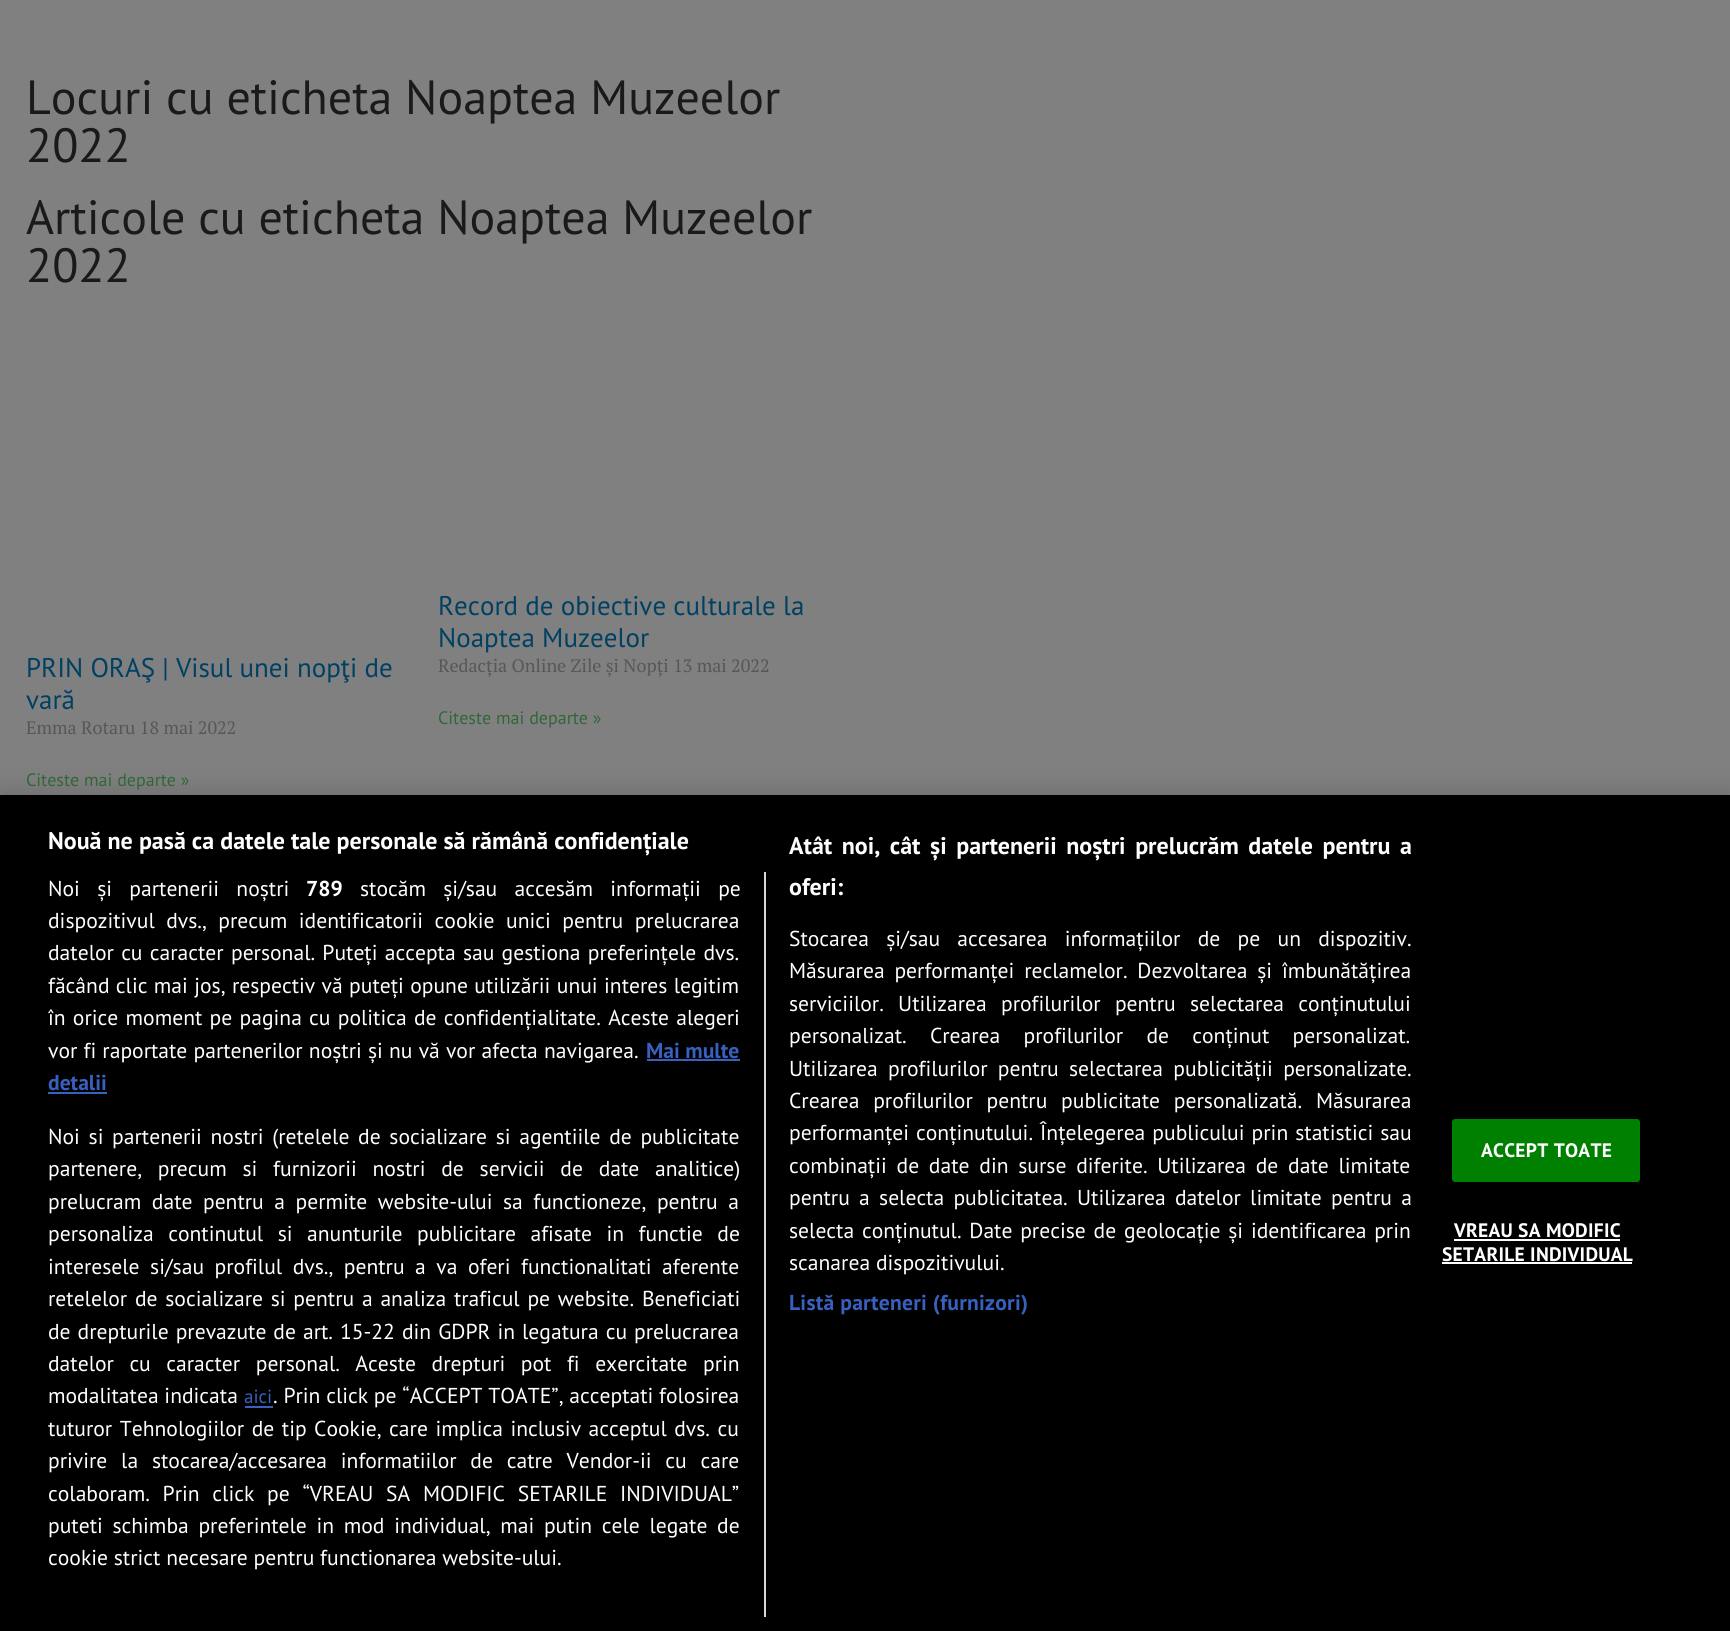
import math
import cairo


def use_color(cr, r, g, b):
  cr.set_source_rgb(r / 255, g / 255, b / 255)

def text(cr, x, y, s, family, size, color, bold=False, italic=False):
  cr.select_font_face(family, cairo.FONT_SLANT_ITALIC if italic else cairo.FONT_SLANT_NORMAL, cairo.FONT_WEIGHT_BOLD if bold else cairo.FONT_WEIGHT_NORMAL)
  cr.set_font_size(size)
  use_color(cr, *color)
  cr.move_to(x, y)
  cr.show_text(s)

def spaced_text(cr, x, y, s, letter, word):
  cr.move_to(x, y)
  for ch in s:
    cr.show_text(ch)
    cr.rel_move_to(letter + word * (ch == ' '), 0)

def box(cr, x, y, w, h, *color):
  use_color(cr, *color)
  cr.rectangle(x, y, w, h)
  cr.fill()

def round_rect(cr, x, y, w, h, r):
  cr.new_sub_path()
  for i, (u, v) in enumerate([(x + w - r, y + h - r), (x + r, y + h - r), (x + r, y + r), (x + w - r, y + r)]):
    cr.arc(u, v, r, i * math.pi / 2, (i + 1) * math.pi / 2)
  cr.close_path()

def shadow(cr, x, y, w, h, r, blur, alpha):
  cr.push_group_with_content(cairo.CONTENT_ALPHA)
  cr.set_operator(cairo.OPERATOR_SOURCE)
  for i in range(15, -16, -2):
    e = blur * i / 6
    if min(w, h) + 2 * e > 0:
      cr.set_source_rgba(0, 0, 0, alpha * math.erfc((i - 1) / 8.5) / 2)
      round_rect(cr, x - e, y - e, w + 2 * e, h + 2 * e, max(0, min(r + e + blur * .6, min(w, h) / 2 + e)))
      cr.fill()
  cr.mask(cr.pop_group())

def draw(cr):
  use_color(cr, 128, 128, 128)
  cr.paint()
  use_color(cr, 0, 0, 0)
  shadow(cr, 0, 795, 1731, 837, 0, 13.5, 0.2)
  box(cr, 0, 795, 1730, 836, 0, 0, 0)
  box(cr, 764, 872, 2, 745, 216, 216, 216)
  box(cr, 647, 1059, 93, 2, 56, 96, 190)
  box(cr, 48, 1092, 59, 2, 56, 96, 190)
  box(cr, 245, 1406, 28, 2, 56, 96, 190)
  use_color(cr, 0, 128, 0)
  round_rect(cr, 1453, 1120, 186, 61, 2)
  cr.fill_preserve()
  cr.stroke()
  box(cr, 1454, 1239, 166, 2, 255, 255, 255)
  box(cr, 1442, 1262, 190, 2, 255, 255, 255)
  text(cr, 26, 114, "Locuri cu eticheta Noaptea Muzeelor", "PT Sans", 48, (26, 26, 26))
  text(cr, 26, 162, "2022", "PT Sans", 48, (26, 26, 26))
  text(cr, 26, 234, "Articole cu eticheta Noaptea Muzeelor", "PT Sans", 48, (26, 26, 26))
  text(cr, 26, 282, "2022", "PT Sans", 48, (26, 26, 26))
  text(cr, 26, 677, "PRIN ORAŞ | Visul unei nopţi de", "PT Sans", 27, (0, 64, 98))
  text(cr, 26, 709, "vară", "PT Sans", 27, (0, 64, 98))
  text(cr, 26, 734, "Emma Rotaru 18 mai 2022", "PT Serif", 18, (87, 87, 87))
  text(cr, 26, 786, "Citeste mai departe »", "PT Sans", 18, (49, 103, 56))
  text(cr, 438, 615, "Record de obiective culturale la", "PT Sans", 27, (0, 64, 98))
  text(cr, 438, 647, "Noaptea Muzeelor", "PT Sans", 27, (0, 64, 98))
  text(cr, 438, 672, "Redacția Online Zile și Nopți 13 mai 2022", "PT Serif", 18, (87, 87, 87))
  text(cr, 438, 724, "Citeste mai departe »", "PT Sans", 18, (49, 103, 56))
  text(cr, 48, 849, "Nouă ne pasă ca datele tale personale să rămână confidențiale", "PT Sans", 24, (255, 255, 255), bold=True)
  spaced_text(cr, 789, 854, "Atât noi, cât și partenerii noștri prelucrăm datele pentru a", 0, 3.5)
  text(cr, 789, 895, "oferi:", "PT Sans", 24, (255, 255, 255), bold=True)
  cr.select_font_face("PT Sans")
  cr.set_font_size(21.6)
  spaced_text(cr, 789, 946, "Stocarea și/sau accesarea informațiilor de pe un dispozitiv.", 0, 11.5)
  spaced_text(cr, 789, 978, "Măsurarea performanței reclamelor. Dezvoltarea și îmbunătățirea", 0, 4)
  spaced_text(cr, 789, 1011, "serviciilor. Utilizarea profilurilor pentru selectarea conținutului", 0, 8.5)
  spaced_text(cr, 789, 1043, "personalizat. Crearea profilurilor de conținut personalizat.", 0, 17.5)
  spaced_text(cr, 789, 1076, "Utilizarea profilurilor pentru selectarea publicității personalizate.", 0, 4.5)
  spaced_text(cr, 789, 1108, "Crearea profilurilor pentru publicitate personalizată. Măsurarea", 0, 8)
  spaced_text(cr, 789, 1140, "performanței conținutului. Înțelegerea publicului prin statistici sau", 0, 1.25)
  spaced_text(cr, 789, 1173, "combinații de date din surse diferite. Utilizarea de date limitate", 0, 4)
  spaced_text(cr, 789, 1205, "pentru a selecta publicitatea. Utilizarea datelor limitate pentru a", 0, 3.5)
  spaced_text(cr, 789, 1238, "selecta conținutul. Date precise de geolocație și identificarea prin", 0, 2)
  text(cr, 789, 1270, "scanarea dispozitivului.", "PT Sans", 21.6, (255, 255, 255))
  cr.select_font_face("PT Sans", cairo.FONT_SLANT_NORMAL, cairo.FONT_WEIGHT_BOLD)
  use_color(cr, 56, 96, 190)
  spaced_text(cr, 789, 1310, "Listă parteneri (furnizori)", 0.25, 0)
  cr.select_font_face("PT Sans")
  use_color(cr, 255, 255, 255)
  spaced_text(cr, 48, 896, "Noi și partenerii noștri", 0, 11.5)
  text(cr, 306, 896, "789", "PT Sans", 21.6, (255, 255, 255), bold=True)
  cr.select_font_face("PT Sans")
  spaced_text(cr, 360, 896, "stocăm și/sau accesăm informații pe", 0, 11.5)
  spaced_text(cr, 48, 928, "dispozitivul dvs., precum identificatorii cookie unici pentru prelucrarea", 0, 5.75)
  spaced_text(cr, 48, 960, "datelor cu caracter personal. Puteți accepta sau gestiona preferințele dvs.", 0, 1.5)
  spaced_text(cr, 48, 993, "făcând clic mai jos, respectiv vă puteți opune utilizării unui interes legitim", 0, 0.6)
  spaced_text(cr, 48, 1025, "în orice moment pe pagina cu politica de confidențialitate. Aceste alegeri", 0, 1.5)
  spaced_text(cr, 48, 1058, "vor fi raportate partenerilor noștri și nu vă vor afecta navigarea.", 0, 0.4)
  text(cr, 646, 1058, "Mai multe", "PT Sans", 21.6, (56, 96, 190), bold=True)
  text(cr, 48, 1090, "detalii", "PT Sans", 21.6, (56, 96, 190), bold=True)
  cr.select_font_face("PT Sans")
  use_color(cr, 255, 255, 255)
  spaced_text(cr, 48, 1144, "Noi si partenerii nostri (retelele de socializare si agentiile de publicitate", 0, 2.9)
  spaced_text(cr, 48, 1176, "partenere, precum si furnizorii nostri de servicii de date analitice)", 0, 10)
  spaced_text(cr, 48, 1209, "prelucram date pentru a permite website-ului sa functioneze, pentru a", 0, 4.75)
  spaced_text(cr, 48, 1241, "personaliza continutul si anunturile publicitare afisate in functie de", 0, 8.75)
  spaced_text(cr, 48, 1274, "interesele si/sau profilul dvs., pentru a va oferi functionalitati aferente", 0, 4.75)
  spaced_text(cr, 48, 1306, "retelelor de socializare si pentru a analiza traficul pe website. Beneficiati", 0, 2)
  spaced_text(cr, 48, 1339, "de drepturile prevazute de art. 15-22 din GDPR in legatura cu prelucrarea", 0, 1.25)
  spaced_text(cr, 48, 1371, "datelor cu caracter personal. Aceste drepturi pot fi exercitate prin", 0, 9.75)
  text(cr, 48, 1403, "modalitatea indicata", "PT Sans", 21.6, (255, 255, 255))
  text(cr, 244, 1403, "aici", "PT Sans", 19, (56, 96, 190))
  text(cr, 273, 1403, ". Prin click pe “ACCEPT TOATE”, acceptati folosirea", "PT Sans", 21.6, (255, 255, 255))
  spaced_text(cr, 48, 1436, "tuturor Tehnologiilor de tip Cookie, care implica inclusiv acceptul dvs. cu", 0, 1.75)
  spaced_text(cr, 48, 1468, "privire la stocarea/accesarea informatiilor de catre Vendor-ii cu care", 0, 8)
  spaced_text(cr, 48, 1501, "colaboram. Prin click pe “VREAU SA MODIFIC SETARILE INDIVIDUAL”", 0, 7)
  spaced_text(cr, 48, 1533, "puteti schimba preferintele in mod individual, mai putin cele legate de", 0, 3.9)
  text(cr, 48, 1565, "cookie strict necesare pentru functionarea website-ului.", "PT Sans", 21.6, (255, 255, 255))
  cr.select_font_face("PT Sans", cairo.FONT_SLANT_NORMAL, cairo.FONT_WEIGHT_BOLD)
  cr.set_font_size(19.5)
  spaced_text(cr, 1481, 1157, "ACCEPT TOATE", 0.25, 0)
  spaced_text(cr, 1454, 1237, "VREAU SA MODIFIC", 0.25, 0)
  spaced_text(cr, 1442, 1261, "SETARILE INDIVIDUAL", 0.25, 0)


surface = cairo.ImageSurface(cairo.FORMAT_RGB24, 1730, 1631)
cr = cairo.Context(surface)
options = cairo.FontOptions()
options.set_hint_metrics(cairo.HINT_METRICS_OFF)
options.set_hint_style(cairo.HINT_STYLE_NONE)
cr.set_font_options(options)
cr.set_miter_limit(4)
draw(cr)
surface.write_to_png("out.png")
